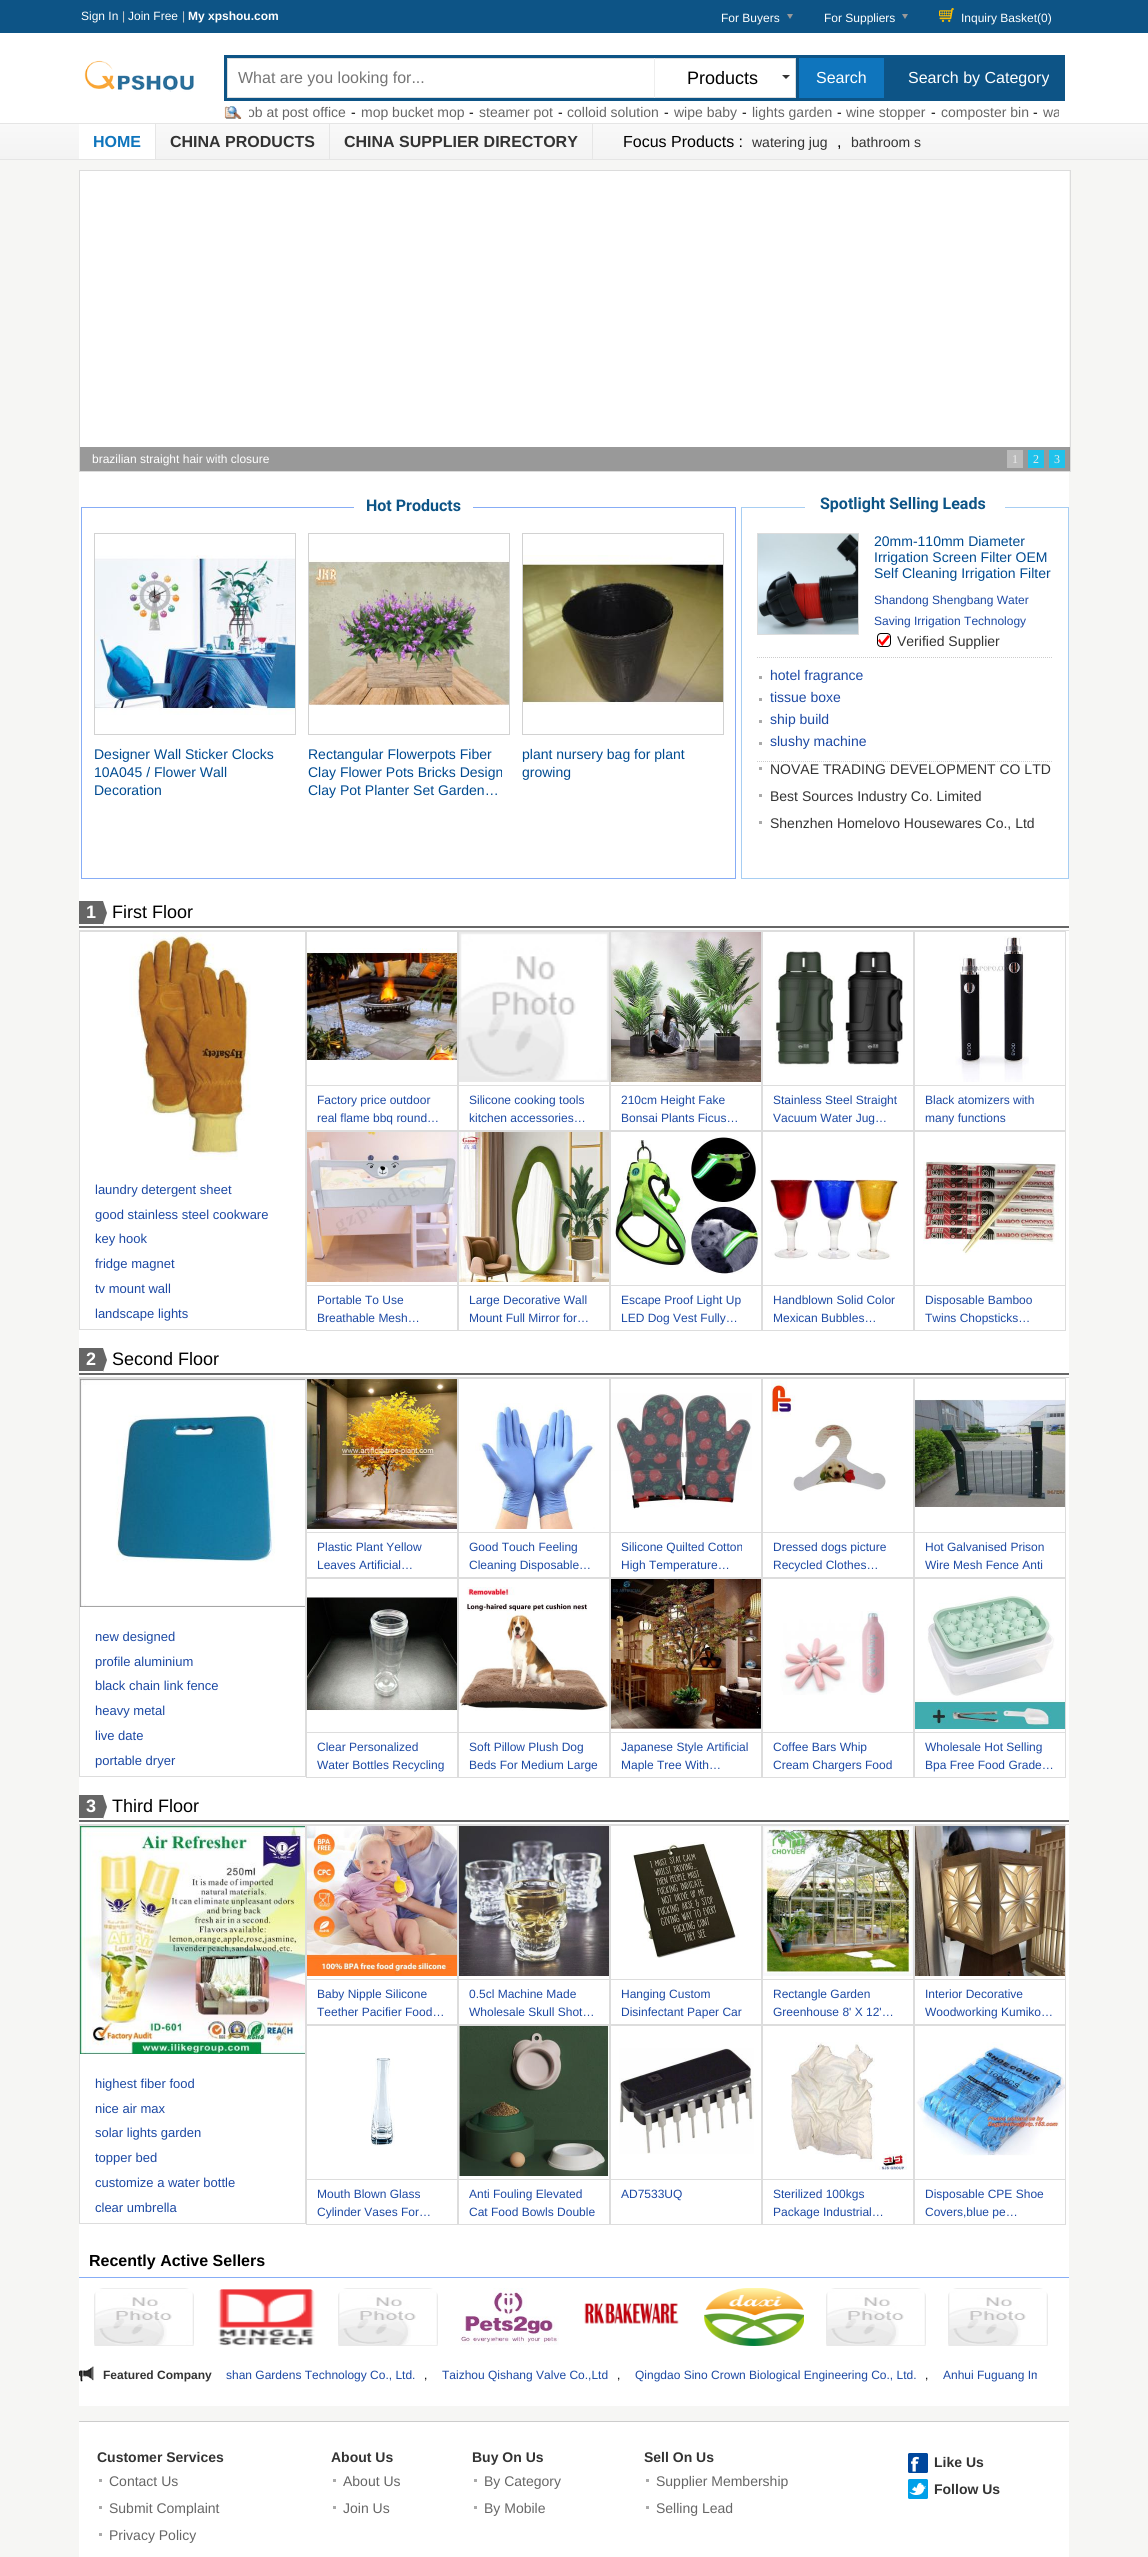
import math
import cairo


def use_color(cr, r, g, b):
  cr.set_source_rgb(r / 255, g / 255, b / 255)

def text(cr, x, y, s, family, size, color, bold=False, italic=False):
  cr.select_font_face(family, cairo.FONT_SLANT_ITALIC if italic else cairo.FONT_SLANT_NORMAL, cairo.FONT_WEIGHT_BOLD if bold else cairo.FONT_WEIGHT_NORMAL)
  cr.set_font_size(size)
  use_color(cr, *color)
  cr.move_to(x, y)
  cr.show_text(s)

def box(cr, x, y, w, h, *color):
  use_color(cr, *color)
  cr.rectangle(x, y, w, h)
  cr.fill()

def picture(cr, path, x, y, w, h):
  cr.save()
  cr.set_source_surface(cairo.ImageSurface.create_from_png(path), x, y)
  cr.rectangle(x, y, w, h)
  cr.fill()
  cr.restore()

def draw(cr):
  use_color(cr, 246, 246, 244)
  cr.paint()
  box(cr, 1069, 447, 1, 24, 148, 148, 146)
  box(cr, 0, 0, 1148, 33, 13, 84, 134)
  picture(cr, "img_01.png", 787, 14, 6, 5)
  picture(cr, "img_01.png", 902, 14, 6, 5)
  picture(cr, "img_02.png", 939, 8, 15, 14)
  box(cr, 0, 33, 1148, 90, 255, 255, 255)
  picture(cr, "img_03.png", 84, 60, 110, 32)
  box(cr, 224, 55, 841, 46, 13, 84, 134)
  cr.rectangle(227.5, 58.5, 426, 39)
  use_color(cr, 221, 221, 221)
  cr.set_line_width(1)
  cr.stroke()
  box(cr, 228, 59, 426, 38, 255, 255, 255)
  box(cr, 655, 59, 140, 38, 255, 255, 255)
  box(cr, 654, 58, 142, 1, 221, 221, 221)
  box(cr, 795, 58, 1, 40, 221, 221, 221)
  box(cr, 654, 97, 142, 1, 221, 221, 221)
  box(cr, 654, 58, 1, 40, 238, 238, 238)
  use_color(cr, 51, 51, 51)
  cr.new_path()
  cr.move_to(782, 75)
  cr.line_to(790, 75)
  cr.line_to(786, 79)
  cr.close_path()
  cr.fill()
  box(cr, 799, 58, 85, 40, 15, 117, 189)
  picture(cr, "img_04.png", 224, 106, 18, 13)
  gradient = cairo.LinearGradient(574, 124, 574, 159)
  gradient.add_color_stop_rgba(0, 0.976, 0.976, 0.976, 1)
  gradient.add_color_stop_rgba(1, 0.953, 0.953, 0.953, 1)
  cr.set_source(gradient)
  cr.rectangle(0, 124, 1148, 35)
  cr.fill()
  box(cr, 0, 123, 1148, 1, 229, 229, 229)
  box(cr, 0, 159, 1148, 1, 229, 229, 229)
  box(cr, 79, 124, 76, 35, 255, 255, 255)
  box(cr, 155, 124, 1, 35, 230, 230, 230)
  box(cr, 329, 124, 1, 35, 230, 230, 230)
  box(cr, 592, 124, 1, 35, 230, 230, 230)
  box(cr, 79, 171, 990, 2235, 255, 255, 255)
  box(cr, 80, 447, 989, 24, 153, 153, 153)
  cr.rectangle(79.5, 170.5, 991, 301)
  use_color(cr, 220, 220, 220)
  cr.stroke()
  box(cr, 1007, 450, 16, 18, 187, 187, 187)
  box(cr, 1028, 450, 16, 18, 31, 194, 235)
  box(cr, 1049, 450, 16, 18, 31, 194, 235)
  cr.rectangle(81.5, 507.5, 654, 371)
  use_color(cr, 135, 173, 246)
  cr.stroke()
  box(cr, 354, 507, 119, 1, 255, 255, 255)
  cr.rectangle(94.5, 533.5, 201, 201)
  use_color(cr, 210, 210, 210)
  cr.stroke()
  picture(cr, "img_05.png", 95, 555, 200, 160)
  cr.rectangle(308.5, 533.5, 201, 201)
  cr.stroke()
  picture(cr, "img_06.png", 309, 560, 200, 146)
  cr.rectangle(522.5, 533.5, 201, 201)
  cr.stroke()
  picture(cr, "img_07.png", 523, 555, 200, 150)
  box(cr, 741, 507, 328, 1, 167, 206, 243)
  box(cr, 1068, 507, 1, 249, 167, 206, 243)
  box(cr, 741, 507, 1, 249, 167, 206, 243)
  box(cr, 805, 507, 200, 1, 255, 255, 255)
  cr.rectangle(757.5, 533.5, 101, 101)
  use_color(cr, 220, 220, 220)
  cr.stroke()
  picture(cr, "img_08.png", 758, 534, 100, 100)
  picture(cr, "img_09.png", 877, 633, 14, 14)
  cr.new_path()
  cr.move_to(757, 657.5)
  cr.line_to(1053, 657.5)
  use_color(cr, 204, 204, 204)
  cr.set_dash([1, 1])
  cr.stroke()
  cr.new_path()
  cr.move_to(757, 761.5)
  cr.line_to(1053, 761.5)
  cr.stroke()
  box(cr, 759, 676, 3, 3, 170, 170, 170)
  box(cr, 759, 698, 3, 3, 170, 170, 170)
  box(cr, 759, 720, 3, 3, 170, 170, 170)
  box(cr, 759, 742, 3, 3, 170, 170, 170)
  box(cr, 1068, 756, 1, 123, 167, 206, 243)
  box(cr, 741, 878, 328, 1, 167, 206, 243)
  box(cr, 741, 756, 1, 123, 167, 206, 243)
  box(cr, 759, 767, 3, 3, 170, 170, 170)
  box(cr, 759, 794, 3, 3, 170, 170, 170)
  box(cr, 759, 821, 3, 3, 170, 170, 170)
  box(cr, 79, 926, 990, 2, 102, 102, 102)
  box(cr, 79, 901, 24, 23, 102, 102, 102)
  cr.new_path()
  cr.move_to(103, 925)
  cr.line_to(103, 901)
  cr.line_to(107, 913)
  cr.close_path()
  cr.fill()
  box(cr, 79, 930, 227, 2, 221, 221, 221)
  box(cr, 305, 930, 1, 400, 221, 221, 221)
  box(cr, 79, 1329, 227, 1, 221, 221, 221)
  box(cr, 79, 930, 1, 400, 221, 221, 221)
  picture(cr, "img_10.png", 129, 932, 122, 228)
  box(cr, 306, 930, 763, 1, 221, 221, 221)
  cr.rectangle(306.5, 931.5, 151, 199)
  cr.set_dash([])
  cr.stroke()
  picture(cr, "img_11.png", 307, 948, 150, 113)
  box(cr, 307, 1085, 150, 1, 221, 221, 221)
  cr.rectangle(458.5, 931.5, 151, 199)
  cr.stroke()
  picture(cr, "img_12.png", 459, 932, 150, 150)
  box(cr, 459, 1085, 150, 1, 221, 221, 221)
  cr.rectangle(610.5, 931.5, 151, 199)
  cr.stroke()
  picture(cr, "img_13.png", 611, 932, 150, 150)
  box(cr, 611, 1085, 150, 1, 221, 221, 221)
  cr.rectangle(762.5, 931.5, 151, 199)
  cr.stroke()
  picture(cr, "img_14.png", 771, 951, 132, 116)
  box(cr, 763, 1085, 150, 1, 221, 221, 221)
  cr.rectangle(914.5, 931.5, 151, 199)
  cr.stroke()
  picture(cr, "img_15.png", 955, 936, 74, 146)
  box(cr, 915, 1085, 150, 1, 221, 221, 221)
  cr.rectangle(306.5, 1131.5, 151, 199)
  cr.stroke()
  picture(cr, "img_16.png", 307, 1132, 150, 150)
  box(cr, 307, 1285, 150, 1, 221, 221, 221)
  cr.rectangle(458.5, 1131.5, 151, 199)
  cr.stroke()
  picture(cr, "img_17.png", 459, 1132, 150, 150)
  box(cr, 459, 1285, 150, 1, 221, 221, 221)
  cr.rectangle(610.5, 1131.5, 151, 199)
  cr.stroke()
  picture(cr, "img_18.png", 611, 1137, 150, 137)
  box(cr, 611, 1285, 150, 1, 221, 221, 221)
  cr.rectangle(762.5, 1131.5, 151, 199)
  cr.stroke()
  picture(cr, "img_19.png", 769, 1179, 130, 81)
  box(cr, 763, 1285, 150, 1, 221, 221, 221)
  cr.rectangle(914.5, 1131.5, 151, 199)
  cr.stroke()
  picture(cr, "img_20.png", 923, 1161, 136, 94)
  box(cr, 915, 1285, 150, 1, 221, 221, 221)
  box(cr, 79, 1373, 990, 2, 102, 102, 102)
  box(cr, 79, 1348, 24, 23, 102, 102, 102)
  cr.new_path()
  cr.move_to(103, 1372)
  cr.line_to(103, 1348)
  cr.line_to(107, 1360)
  cr.close_path()
  cr.fill()
  box(cr, 79, 1377, 227, 2, 221, 221, 221)
  box(cr, 305, 1377, 1, 400, 221, 221, 221)
  box(cr, 79, 1776, 227, 1, 221, 221, 221)
  box(cr, 79, 1377, 1, 400, 221, 221, 221)
  picture(cr, "img_21.png", 80, 1379, 225, 228)
  box(cr, 306, 1377, 763, 1, 221, 221, 221)
  cr.rectangle(306.5, 1378.5, 151, 199)
  cr.stroke()
  picture(cr, "img_22.png", 307, 1379, 150, 150)
  box(cr, 307, 1532, 150, 1, 221, 221, 221)
  cr.rectangle(458.5, 1378.5, 151, 199)
  cr.stroke()
  picture(cr, "img_23.png", 475, 1403, 120, 126)
  box(cr, 459, 1532, 150, 1, 221, 221, 221)
  cr.rectangle(610.5, 1378.5, 151, 199)
  cr.stroke()
  picture(cr, "img_24.png", 611, 1393, 141, 117)
  box(cr, 611, 1532, 150, 1, 221, 221, 221)
  cr.rectangle(762.5, 1378.5, 151, 199)
  cr.stroke()
  picture(cr, "img_25.png", 771, 1379, 115, 112)
  box(cr, 763, 1532, 150, 1, 221, 221, 221)
  cr.rectangle(914.5, 1378.5, 151, 199)
  cr.stroke()
  picture(cr, "img_26.png", 915, 1399, 150, 108)
  box(cr, 915, 1532, 150, 1, 221, 221, 221)
  cr.rectangle(306.5, 1578.5, 151, 199)
  cr.stroke()
  picture(cr, "img_27.png", 307, 1597, 150, 114)
  box(cr, 307, 1732, 150, 1, 221, 221, 221)
  cr.rectangle(458.5, 1578.5, 151, 199)
  cr.stroke()
  picture(cr, "img_28.png", 459, 1587, 150, 124)
  box(cr, 459, 1732, 150, 1, 221, 221, 221)
  cr.rectangle(610.5, 1578.5, 151, 199)
  cr.stroke()
  picture(cr, "img_29.png", 611, 1579, 150, 150)
  box(cr, 611, 1732, 150, 1, 221, 221, 221)
  cr.rectangle(762.5, 1578.5, 151, 199)
  cr.stroke()
  picture(cr, "img_30.png", 780, 1611, 108, 84)
  box(cr, 763, 1732, 150, 1, 221, 221, 221)
  cr.rectangle(914.5, 1578.5, 151, 199)
  cr.stroke()
  picture(cr, "img_31.png", 915, 1595, 150, 134)
  box(cr, 915, 1732, 150, 1, 221, 221, 221)
  box(cr, 79, 1820, 990, 2, 102, 102, 102)
  box(cr, 79, 1795, 24, 23, 102, 102, 102)
  cr.new_path()
  cr.move_to(103, 1819)
  cr.line_to(103, 1795)
  cr.line_to(107, 1807)
  cr.close_path()
  cr.fill()
  box(cr, 79, 1824, 227, 2, 221, 221, 221)
  box(cr, 305, 1824, 1, 400, 221, 221, 221)
  box(cr, 79, 2223, 227, 1, 221, 221, 221)
  box(cr, 79, 1824, 1, 400, 221, 221, 221)
  picture(cr, "img_32.png", 80, 1826, 225, 228)
  box(cr, 306, 1824, 763, 1, 221, 221, 221)
  cr.rectangle(306.5, 1825.5, 151, 199)
  cr.stroke()
  picture(cr, "img_33.png", 307, 1826, 150, 150)
  box(cr, 307, 1979, 150, 1, 221, 221, 221)
  cr.rectangle(458.5, 1825.5, 151, 199)
  cr.stroke()
  picture(cr, "img_34.png", 459, 1826, 150, 150)
  box(cr, 459, 1979, 150, 1, 221, 221, 221)
  cr.rectangle(610.5, 1825.5, 151, 199)
  cr.stroke()
  picture(cr, "img_35.png", 632, 1842, 107, 116)
  box(cr, 611, 1979, 150, 1, 221, 221, 221)
  cr.rectangle(762.5, 1825.5, 151, 199)
  cr.stroke()
  picture(cr, "img_36.png", 763, 1826, 150, 150)
  box(cr, 763, 1979, 150, 1, 221, 221, 221)
  cr.rectangle(914.5, 1825.5, 151, 199)
  cr.stroke()
  picture(cr, "img_37.png", 915, 1826, 150, 150)
  box(cr, 915, 1979, 150, 1, 221, 221, 221)
  cr.rectangle(306.5, 2025.5, 151, 199)
  cr.stroke()
  picture(cr, "img_38.png", 371, 2058, 24, 88)
  box(cr, 307, 2179, 150, 1, 221, 221, 221)
  cr.rectangle(458.5, 2025.5, 151, 199)
  cr.stroke()
  picture(cr, "img_39.png", 459, 2026, 150, 150)
  box(cr, 459, 2179, 150, 1, 221, 221, 221)
  cr.rectangle(610.5, 2025.5, 151, 199)
  cr.stroke()
  picture(cr, "img_40.png", 619, 2048, 135, 106)
  box(cr, 611, 2179, 150, 1, 221, 221, 221)
  cr.rectangle(762.5, 2025.5, 151, 199)
  cr.stroke()
  picture(cr, "img_41.png", 791, 2042, 116, 128)
  box(cr, 763, 2179, 150, 1, 221, 221, 221)
  cr.rectangle(914.5, 2025.5, 151, 199)
  cr.stroke()
  picture(cr, "img_42.png", 915, 2042, 150, 114)
  box(cr, 915, 2179, 150, 1, 221, 221, 221)
  box(cr, 79, 2277, 990, 1, 135, 173, 246)
  picture(cr, "img_43.png", 94, 2288, 100, 58)
  picture(cr, "img_44.png", 218, 2289, 97, 57)
  picture(cr, "img_43.png", 338, 2288, 100, 58)
  picture(cr, "img_45.png", 460, 2288, 99, 57)
  picture(cr, "img_46.png", 584, 2303, 95, 21)
  picture(cr, "img_47.png", 704, 2288, 100, 58)
  picture(cr, "img_48.png", 826, 2288, 100, 58)
  picture(cr, "img_49.png", 948, 2288, 100, 58)
  picture(cr, "img_50.png", 79, 2366, 15, 16)
  box(cr, 79, 2422, 990, 135, 255, 255, 255)
  box(cr, 79, 2421, 990, 1, 204, 204, 204)
  box(cr, 99, 2479, 3, 3, 170, 170, 170)
  box(cr, 99, 2506, 3, 3, 170, 170, 170)
  box(cr, 99, 2533, 3, 3, 170, 170, 170)
  box(cr, 333, 2479, 3, 3, 170, 170, 170)
  box(cr, 333, 2506, 3, 3, 170, 170, 170)
  box(cr, 474, 2479, 3, 3, 170, 170, 170)
  box(cr, 474, 2506, 3, 3, 170, 170, 170)
  box(cr, 646, 2479, 3, 3, 170, 170, 170)
  box(cr, 646, 2506, 3, 3, 170, 170, 170)
  picture(cr, "img_51.png", 908, 2453, 20, 20)
  picture(cr, "img_52.png", 908, 2479, 20, 20)
  text(cr, 81, 20, "Sign In", "Liberation Sans", 12, (255, 255, 255))
  text(cr, 122, 20, "|", "Liberation Sans", 12, (204, 204, 204))
  text(cr, 128, 20, "Join Free", "Liberation Sans", 12, (255, 255, 255))
  text(cr, 182, 20, "|", "Liberation Sans", 12, (204, 204, 204))
  text(cr, 188, 20, "My xpshou.com", "Liberation Sans", 12, (255, 255, 255), bold=True)
  text(cr, 721, 22, "For Buyers", "Liberation Sans", 12, (255, 255, 255))
  text(cr, 824, 22, "For Suppliers", "Liberation Sans", 12, (255, 255, 255))
  text(cr, 961, 22, "Inquiry Basket(0)", "Liberation Sans", 12, (255, 255, 255))
  text(cr, 238, 83, "What are you looking for...", "Liberation Sans", 16, (117, 117, 117))
  text(cr, 687, 84, "Products", "Liberation Sans", 18, (0, 0, 0))
  text(cr, 816, 83, "Search", "Liberation Sans", 16, (255, 255, 255))
  cr.save()
  cr.rectangle(249, 102, 810, 25)
  cr.clip()
  text(cr, 247, 117, "ob at post office", "Liberation Sans", 14, (102, 102, 102))
  cr.restore()
  text(cr, 351, 117, "-", "Liberation Sans", 14, (0, 0, 0))
  text(cr, 361, 117, "mop bucket mop", "Liberation Sans", 14, (102, 102, 102))
  text(cr, 469, 117, "-", "Liberation Sans", 14, (0, 0, 0))
  text(cr, 479, 117, "steamer pot", "Liberation Sans", 14, (102, 102, 102))
  text(cr, 558, 117, "-", "Liberation Sans", 14, (0, 0, 0))
  text(cr, 567, 117, "colloid solution", "Liberation Sans", 14, (102, 102, 102))
  text(cr, 664, 117, "-", "Liberation Sans", 14, (0, 0, 0))
  text(cr, 674, 117, "wipe baby", "Liberation Sans", 14, (102, 102, 102))
  text(cr, 742, 117, "-", "Liberation Sans", 14, (0, 0, 0))
  text(cr, 752, 117, "lights garden", "Liberation Sans", 14, (102, 102, 102))
  text(cr, 837, 117, "-", "Liberation Sans", 14, (0, 0, 0))
  text(cr, 846, 117, "wine stopper", "Liberation Sans", 14, (102, 102, 102))
  text(cr, 931, 117, "-", "Liberation Sans", 14, (0, 0, 0))
  text(cr, 941, 117, "composter bin", "Liberation Sans", 14, (102, 102, 102))
  text(cr, 1033, 117, "-", "Liberation Sans", 14, (0, 0, 0))
  cr.save()
  cr.rectangle(249, 102, 810, 25)
  cr.clip()
  text(cr, 1043, 117, "wa", "Liberation Sans", 14, (102, 102, 102))
  cr.restore()
  text(cr, 908, 83, "Search by Category", "Liberation Sans", 16, (255, 255, 255))
  text(cr, 93, 147, "HOME", "Liberation Sans", 16, (15, 117, 189), bold=True)
  text(cr, 170, 147, "CHINA PRODUCTS", "Liberation Sans", 16, (51, 51, 51), bold=True)
  text(cr, 344, 147, "CHINA SUPPLIER DIRECTORY", "Liberation Sans", 16, (51, 51, 51), bold=True)
  text(cr, 623, 147, "Focus Products :", "Liberation Sans", 16, (0, 0, 0))
  text(cr, 752, 147, "watering jug", "Liberation Sans", 14, (51, 51, 51))
  text(cr, 837, 147, ",", "Liberation Sans", 16, (0, 0, 0))
  text(cr, 851, 147, "bathroom s", "Liberation Sans", 14, (51, 51, 51))
  text(cr, 92, 463, "brazilian straight hair with closure", "Liberation Sans", 12, (255, 255, 255))
  text(cr, 1012, 463, "1", "Liberation Serif", 12, (235, 235, 235))
  text(cr, 1033, 463, "2", "Liberation Serif", 12, (235, 235, 235))
  text(cr, 1054, 463, "3", "Liberation Serif", 12, (235, 235, 235))
  text(cr, 366, 511, "Hot Products", "Roboto", 16, (13, 84, 134), bold=True)
  text(cr, 94, 759, "Designer Wall Sticker Clocks", "Liberation Sans", 14, (0, 75, 145))
  text(cr, 94, 777, "10A045 / Flower Wall", "Liberation Sans", 14, (0, 75, 145))
  text(cr, 94, 795, "Decoration", "Liberation Sans", 14, (0, 75, 145))
  text(cr, 308, 759, "Rectangular Flowerpots Fiber", "Liberation Sans", 14, (0, 75, 145))
  text(cr, 308, 777, "Clay Flower Pots Bricks Design", "Liberation Sans", 14, (0, 75, 145))
  text(cr, 308, 795, "Clay Pot Planter Set Garden…", "Liberation Sans", 14, (0, 75, 145))
  text(cr, 522, 759, "plant nursery bag for plant", "Liberation Sans", 14, (0, 75, 145))
  text(cr, 522, 777, "growing", "Liberation Sans", 14, (0, 75, 145))
  text(cr, 820, 509, "Spotlight Selling Leads", "Roboto", 16, (13, 84, 134), bold=True)
  text(cr, 874, 546, "20mm-110mm Diameter", "Liberation Sans", 14, (0, 75, 145))
  text(cr, 874, 562, "Irrigation Screen Filter OEM", "Liberation Sans", 14, (0, 75, 145))
  text(cr, 874, 578, "Self Cleaning Irrigation Filter", "Liberation Sans", 14, (0, 75, 145))
  text(cr, 874, 604, "Shandong Shengbang Water", "Liberation Sans", 12, (28, 73, 164))
  text(cr, 874, 625, "Saving Irrigation Technology", "Liberation Sans", 12, (28, 73, 164))
  text(cr, 897, 646, "Verified Supplier", "Liberation Sans", 14, (51, 51, 51))
  text(cr, 770, 680, "hotel fragrance", "Liberation Sans", 14, (28, 73, 164))
  text(cr, 770, 702, "tissue boxe", "Liberation Sans", 14, (28, 73, 164))
  text(cr, 770, 724, "ship build", "Liberation Sans", 14, (28, 73, 164))
  text(cr, 770, 746, "slushy machine", "Liberation Sans", 14, (28, 73, 164))
  text(cr, 770, 774, "NOVAE TRADING DEVELOPMENT CO LTD", "Liberation Sans", 14, (51, 51, 51))
  text(cr, 770, 801, "Best Sources Industry Co. Limited", "Liberation Sans", 14, (51, 51, 51))
  text(cr, 770, 828, "Shenzhen Homelovo Housewares Co., Ltd", "Liberation Sans", 14, (51, 51, 51))
  text(cr, 86, 918, "1", "Liberation Sans", 18, (255, 255, 255), bold=True)
  text(cr, 112, 918, "First Floor", "Liberation Sans", 18, (0, 0, 0))
  text(cr, 95, 1194, "laundry detergent sheet", "Liberation Sans", 13, (28, 73, 164))
  text(cr, 95, 1219, "good stainless steel cookware", "Liberation Sans", 13, (28, 73, 164))
  text(cr, 95, 1243, "key hook", "Liberation Sans", 13, (28, 73, 164))
  text(cr, 95, 1268, "fridge magnet", "Liberation Sans", 13, (28, 73, 164))
  text(cr, 95, 1293, "tv mount wall", "Liberation Sans", 13, (28, 73, 164))
  text(cr, 95, 1318, "landscape lights", "Liberation Sans", 13, (28, 73, 164))
  text(cr, 317, 1104, "Factory price outdoor", "Liberation Sans", 12, (28, 73, 164))
  text(cr, 317, 1122, "real flame bbq round…", "Liberation Sans", 12, (28, 73, 164))
  text(cr, 469, 1104, "Silicone cooking tools", "Liberation Sans", 12, (28, 73, 164))
  text(cr, 469, 1122, "kitchen accessories…", "Liberation Sans", 12, (28, 73, 164))
  text(cr, 621, 1104, "210cm Height Fake", "Liberation Sans", 12, (28, 73, 164))
  text(cr, 621, 1122, "Bonsai Plants Ficus…", "Liberation Sans", 12, (28, 73, 164))
  text(cr, 773, 1104, "Stainless Steel Straight", "Liberation Sans", 12, (28, 73, 164))
  text(cr, 773, 1122, "Vacuum Water Jug…", "Liberation Sans", 12, (28, 73, 164))
  text(cr, 925, 1104, "Black atomizers with", "Liberation Sans", 12, (28, 73, 164))
  text(cr, 925, 1122, "many functions", "Liberation Sans", 12, (28, 73, 164))
  text(cr, 317, 1304, "Portable To Use", "Liberation Sans", 12, (28, 73, 164))
  text(cr, 317, 1322, "Breathable Mesh…", "Liberation Sans", 12, (28, 73, 164))
  text(cr, 469, 1304, "Large Decorative Wall", "Liberation Sans", 12, (28, 73, 164))
  text(cr, 469, 1322, "Mount Full Mirror for…", "Liberation Sans", 12, (28, 73, 164))
  text(cr, 621, 1304, "Escape Proof Light Up", "Liberation Sans", 12, (28, 73, 164))
  text(cr, 621, 1322, "LED Dog Vest Fully…", "Liberation Sans", 12, (28, 73, 164))
  text(cr, 773, 1304, "Handblown Solid Color", "Liberation Sans", 12, (28, 73, 164))
  text(cr, 773, 1322, "Mexican Bubbles…", "Liberation Sans", 12, (28, 73, 164))
  text(cr, 925, 1304, "Disposable Bamboo", "Liberation Sans", 12, (28, 73, 164))
  text(cr, 925, 1322, "Twins Chopsticks…", "Liberation Sans", 12, (28, 73, 164))
  text(cr, 86, 1365, "2", "Liberation Sans", 18, (255, 255, 255), bold=True)
  text(cr, 112, 1365, "Second Floor", "Liberation Sans", 18, (0, 0, 0))
  text(cr, 95, 1641, "new designed", "Liberation Sans", 13, (28, 73, 164))
  text(cr, 95, 1666, "profile aluminium", "Liberation Sans", 13, (28, 73, 164))
  text(cr, 95, 1690, "black chain link fence", "Liberation Sans", 13, (28, 73, 164))
  text(cr, 95, 1715, "heavy metal", "Liberation Sans", 13, (28, 73, 164))
  text(cr, 95, 1740, "live date", "Liberation Sans", 13, (28, 73, 164))
  text(cr, 95, 1765, "portable dryer", "Liberation Sans", 13, (28, 73, 164))
  text(cr, 317, 1551, "Plastic Plant Yellow", "Liberation Sans", 12, (28, 73, 164))
  text(cr, 317, 1569, "Leaves Artificial…", "Liberation Sans", 12, (28, 73, 164))
  text(cr, 469, 1551, "Good Touch Feeling", "Liberation Sans", 12, (28, 73, 164))
  text(cr, 469, 1569, "Cleaning Disposable…", "Liberation Sans", 12, (28, 73, 164))
  text(cr, 621, 1551, "Silicone Quilted Cotton", "Liberation Sans", 12, (28, 73, 164))
  text(cr, 621, 1569, "High Temperature…", "Liberation Sans", 12, (28, 73, 164))
  text(cr, 773, 1551, "Dressed dogs picture", "Liberation Sans", 12, (28, 73, 164))
  text(cr, 773, 1569, "Recycled Clothes…", "Liberation Sans", 12, (28, 73, 164))
  text(cr, 925, 1551, "Hot Galvanised Prison", "Liberation Sans", 12, (28, 73, 164))
  text(cr, 925, 1569, "Wire Mesh Fence Anti", "Liberation Sans", 12, (28, 73, 164))
  text(cr, 317, 1751, "Clear Personalized", "Liberation Sans", 12, (28, 73, 164))
  text(cr, 317, 1769, "Water Bottles Recycling", "Liberation Sans", 12, (28, 73, 164))
  text(cr, 469, 1751, "Soft Pillow Plush Dog", "Liberation Sans", 12, (28, 73, 164))
  text(cr, 469, 1769, "Beds For Medium Large", "Liberation Sans", 12, (28, 73, 164))
  text(cr, 621, 1751, "Japanese Style Artificial", "Liberation Sans", 12, (28, 73, 164))
  text(cr, 621, 1769, "Maple Tree With…", "Liberation Sans", 12, (28, 73, 164))
  text(cr, 773, 1751, "Coffee Bars Whip", "Liberation Sans", 12, (28, 73, 164))
  text(cr, 773, 1769, "Cream Chargers Food", "Liberation Sans", 12, (28, 73, 164))
  text(cr, 925, 1751, "Wholesale Hot Selling", "Liberation Sans", 12, (28, 73, 164))
  text(cr, 925, 1769, "Bpa Free Food Grade…", "Liberation Sans", 12, (28, 73, 164))
  text(cr, 86, 1812, "3", "Liberation Sans", 18, (255, 255, 255), bold=True)
  text(cr, 112, 1812, "Third Floor", "Liberation Sans", 18, (0, 0, 0))
  text(cr, 95, 2088, "highest fiber food", "Liberation Sans", 13, (28, 73, 164))
  text(cr, 95, 2113, "nice air max", "Liberation Sans", 13, (28, 73, 164))
  text(cr, 95, 2137, "solar lights garden", "Liberation Sans", 13, (28, 73, 164))
  text(cr, 95, 2162, "topper bed", "Liberation Sans", 13, (28, 73, 164))
  text(cr, 95, 2187, "customize a water bottle", "Liberation Sans", 13, (28, 73, 164))
  text(cr, 95, 2212, "clear umbrella", "Liberation Sans", 13, (28, 73, 164))
  text(cr, 317, 1998, "Baby Nipple Silicone", "Liberation Sans", 12, (28, 73, 164))
  text(cr, 317, 2016, "Teether Pacifier Food…", "Liberation Sans", 12, (28, 73, 164))
  text(cr, 469, 1998, "0.5cl Machine Made", "Liberation Sans", 12, (28, 73, 164))
  text(cr, 469, 2016, "Wholesale Skull Shot…", "Liberation Sans", 12, (28, 73, 164))
  text(cr, 621, 1998, "Hanging Custom", "Liberation Sans", 12, (28, 73, 164))
  text(cr, 621, 2016, "Disinfectant Paper Car", "Liberation Sans", 12, (28, 73, 164))
  text(cr, 773, 1998, "Rectangle Garden", "Liberation Sans", 12, (28, 73, 164))
  text(cr, 773, 2016, "Greenhouse 8' X 12'…", "Liberation Sans", 12, (28, 73, 164))
  text(cr, 925, 1998, "Interior Decorative", "Liberation Sans", 12, (28, 73, 164))
  text(cr, 925, 2016, "Woodworking Kumiko…", "Liberation Sans", 12, (28, 73, 164))
  text(cr, 317, 2198, "Mouth Blown Glass", "Liberation Sans", 12, (28, 73, 164))
  text(cr, 317, 2216, "Cylinder Vases For…", "Liberation Sans", 12, (28, 73, 164))
  text(cr, 469, 2198, "Anti Fouling Elevated", "Liberation Sans", 12, (28, 73, 164))
  text(cr, 469, 2216, "Cat Food Bowls Double", "Liberation Sans", 12, (28, 73, 164))
  text(cr, 621, 2198, "AD7533UQ", "Liberation Sans", 12, (28, 73, 164))
  text(cr, 773, 2198, "Sterilized 100kgs", "Liberation Sans", 12, (28, 73, 164))
  text(cr, 773, 2216, "Package Industrial…", "Liberation Sans", 12, (28, 73, 164))
  text(cr, 925, 2198, "Disposable CPE Shoe", "Liberation Sans", 12, (28, 73, 164))
  text(cr, 925, 2216, "Covers,blue pe…", "Liberation Sans", 12, (28, 73, 164))
  text(cr, 89, 2266, "Recently Active Sellers", "Liberation Sans", 16, (0, 0, 0), bold=True)
  text(cr, 103, 2379, "Featured Company", "Liberation Sans", 12, (51, 51, 51), bold=True)
  text(cr, 226, 2379, "shan Gardens Technology Co., Ltd.", "Liberation Sans", 12, (28, 73, 164))
  text(cr, 424, 2379, ",", "Liberation Sans", 12, (0, 0, 0))
  text(cr, 442, 2379, "Taizhou Qishang Valve Co.,Ltd", "Liberation Sans", 12, (28, 73, 164))
  text(cr, 617, 2379, ",", "Liberation Sans", 12, (0, 0, 0))
  text(cr, 635, 2379, "Qingdao Sino Crown Biological Engineering Co., Ltd.", "Liberation Sans", 12, (28, 73, 164))
  text(cr, 925, 2379, ",", "Liberation Sans", 12, (0, 0, 0))
  cr.save()
  cr.rectangle(227, 2360, 810, 30)
  cr.clip()
  text(cr, 943, 2379, "Anhui Fuguang Im", "Liberation Sans", 12, (28, 73, 164))
  cr.restore()
  text(cr, 97, 2462, "Customer Services", "Liberation Sans", 14, (51, 51, 51), bold=True)
  text(cr, 109, 2486, "Contact Us", "Liberation Sans", 14, (102, 102, 102))
  text(cr, 109, 2513, "Submit Complaint", "Liberation Sans", 14, (102, 102, 102))
  text(cr, 109, 2540, "Privacy Policy", "Liberation Sans", 14, (102, 102, 102))
  text(cr, 331, 2462, "About Us", "Liberation Sans", 14, (51, 51, 51), bold=True)
  text(cr, 343, 2486, "About Us", "Liberation Sans", 14, (102, 102, 102))
  text(cr, 343, 2513, "Join Us", "Liberation Sans", 14, (102, 102, 102))
  text(cr, 472, 2462, "Buy On Us", "Liberation Sans", 14, (51, 51, 51), bold=True)
  text(cr, 484, 2486, "By Category", "Liberation Sans", 14, (102, 102, 102))
  text(cr, 484, 2513, "By Mobile", "Liberation Sans", 14, (102, 102, 102))
  text(cr, 644, 2462, "Sell On Us", "Liberation Sans", 14, (51, 51, 51), bold=True)
  text(cr, 656, 2486, "Supplier Membership", "Liberation Sans", 14, (102, 102, 102))
  text(cr, 656, 2513, "Selling Lead", "Liberation Sans", 14, (102, 102, 102))
  text(cr, 934, 2467, "Like Us", "Liberation Sans", 14, (51, 51, 51), bold=True)
  text(cr, 934, 2494, "Follow Us", "Liberation Sans", 14, (51, 51, 51), bold=True)


surface = cairo.ImageSurface(cairo.FORMAT_RGB24, 1148, 2557)
cr = cairo.Context(surface)
options = cairo.FontOptions()
options.set_hint_metrics(cairo.HINT_METRICS_OFF)
options.set_hint_style(cairo.HINT_STYLE_NONE)
cr.set_font_options(options)
cr.set_miter_limit(4)
draw(cr)
surface.write_to_png("out.png")
